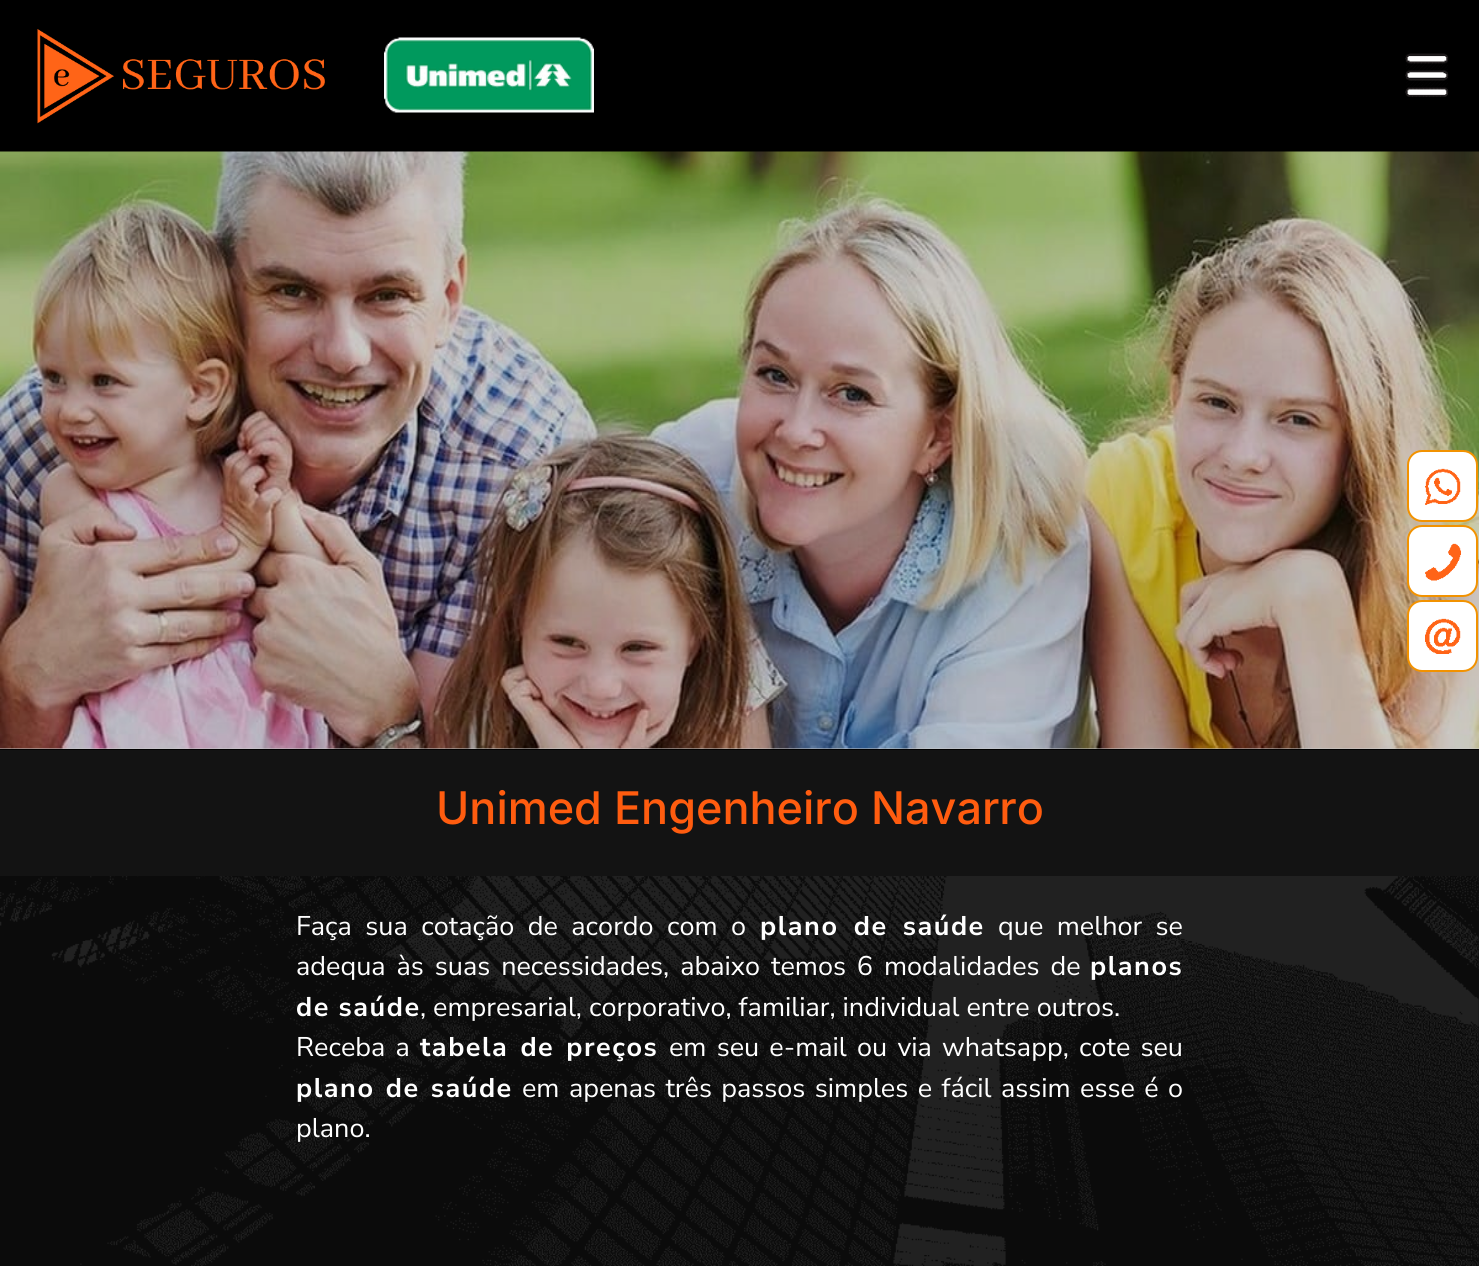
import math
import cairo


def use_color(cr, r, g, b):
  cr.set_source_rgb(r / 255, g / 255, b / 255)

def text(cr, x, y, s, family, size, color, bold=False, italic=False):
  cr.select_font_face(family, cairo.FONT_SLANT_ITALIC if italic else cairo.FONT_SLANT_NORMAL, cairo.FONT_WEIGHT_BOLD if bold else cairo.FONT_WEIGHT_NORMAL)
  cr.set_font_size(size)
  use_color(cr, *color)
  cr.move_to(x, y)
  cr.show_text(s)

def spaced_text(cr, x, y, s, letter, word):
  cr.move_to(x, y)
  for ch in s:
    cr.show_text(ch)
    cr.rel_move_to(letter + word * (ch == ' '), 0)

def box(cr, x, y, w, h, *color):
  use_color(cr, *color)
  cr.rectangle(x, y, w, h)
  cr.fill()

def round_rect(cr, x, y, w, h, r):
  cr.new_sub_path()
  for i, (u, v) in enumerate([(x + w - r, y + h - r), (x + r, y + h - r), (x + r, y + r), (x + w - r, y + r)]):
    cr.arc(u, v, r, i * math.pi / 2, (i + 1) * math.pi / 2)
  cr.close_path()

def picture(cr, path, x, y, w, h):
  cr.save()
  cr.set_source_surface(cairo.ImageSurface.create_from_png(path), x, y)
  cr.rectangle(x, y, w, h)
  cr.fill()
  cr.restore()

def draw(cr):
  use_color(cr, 204, 204, 204)
  cr.paint()
  box(cr, 0, 0, 1479, 152, 0, 0, 0)
  picture(cr, "img_01.png", 37, 29, 288, 95)
  picture(cr, "img_02.png", 384, 37, 210, 76)
  picture(cr, "img_03.png", 1405, 53, 44, 44)
  box(cr, 0, 749, 1479, 1, 0, 0, 0)
  picture(cr, "img_04.png", 0, 151, 1479, 598)
  use_color(cr, 255, 255, 255)
  round_rect(cr, 1408, 451, 69, 70, 14)
  cr.fill_preserve()
  use_color(cr, 242, 146, 0)
  cr.stroke()
  picture(cr, "img_05.png", 1425, 468, 36, 37)
  use_color(cr, 255, 255, 255)
  round_rect(cr, 1408, 526, 69, 70, 14)
  cr.fill_preserve()
  use_color(cr, 242, 146, 0)
  cr.stroke()
  picture(cr, "img_06.png", 1425, 543, 36, 38)
  use_color(cr, 255, 255, 255)
  round_rect(cr, 1408, 601, 69, 70, 14)
  cr.fill_preserve()
  use_color(cr, 242, 146, 0)
  cr.stroke()
  picture(cr, "img_07.png", 1425, 618, 36, 36)
  box(cr, 0, 750, 1479, 516, 19, 19, 19)
  picture(cr, "img_08.png", 0, 876, 1479, 390)
  text(cr, 436, 824, "Unimed Engenheiro Navarro", "Inter Medium", 45, (255, 92, 15))
  cr.select_font_face("Nunito Sans")
  cr.set_font_size(27)
  use_color(cr, 255, 255, 255)
  spaced_text(cr, 296, 935, "Faça sua cotação de acordo com o", 0, 6.5)
  cr.select_font_face("Nunito Sans", cairo.FONT_SLANT_NORMAL, cairo.FONT_WEIGHT_BOLD)
  spaced_text(cr, 760, 935, "plano de saúde", 1.5, 6.5)
  cr.select_font_face("Nunito Sans")
  spaced_text(cr, 998, 935, "que melhor se", 0, 6.5)
  spaced_text(cr, 296, 975, "adequa às suas necessidades, abaixo temos 6 modalidades de", 0, 4)
  cr.select_font_face("Nunito Sans", cairo.FONT_SLANT_NORMAL, cairo.FONT_WEIGHT_BOLD)
  spaced_text(cr, 1090, 975, "planos", 1.5, 0)
  spaced_text(cr, 296, 1016, "de saúde", 1.5, 0)
  text(cr, 420, 1016, ", empresarial, corporativo, familiar, individual entre outros.", "Nunito Sans", 27, (255, 255, 255))
  spaced_text(cr, 296, 1056, "Receba a", 0, 3.25)
  cr.select_font_face("Nunito Sans", cairo.FONT_SLANT_NORMAL, cairo.FONT_WEIGHT_BOLD)
  spaced_text(cr, 420, 1056, "tabela de preços", 1.5, 3.25)
  cr.select_font_face("Nunito Sans")
  spaced_text(cr, 669, 1056, "em seu e-mail ou via whatsapp, cote seu", 0, 3.25)
  cr.select_font_face("Nunito Sans", cairo.FONT_SLANT_NORMAL, cairo.FONT_WEIGHT_BOLD)
  spaced_text(cr, 296, 1097, "plano de saúde", 1.5, 2.5)
  cr.select_font_face("Nunito Sans")
  spaced_text(cr, 522, 1097, "em apenas três passos simples e fácil assim esse é o", 0, 2.5)
  text(cr, 296, 1137, "plano.", "Nunito Sans", 27, (255, 255, 255))


surface = cairo.ImageSurface(cairo.FORMAT_RGB24, 1479, 1266)
cr = cairo.Context(surface)
options = cairo.FontOptions()
options.set_hint_metrics(cairo.HINT_METRICS_OFF)
options.set_hint_style(cairo.HINT_STYLE_NONE)
cr.set_font_options(options)
cr.set_miter_limit(4)
draw(cr)
surface.write_to_png("out.png")
